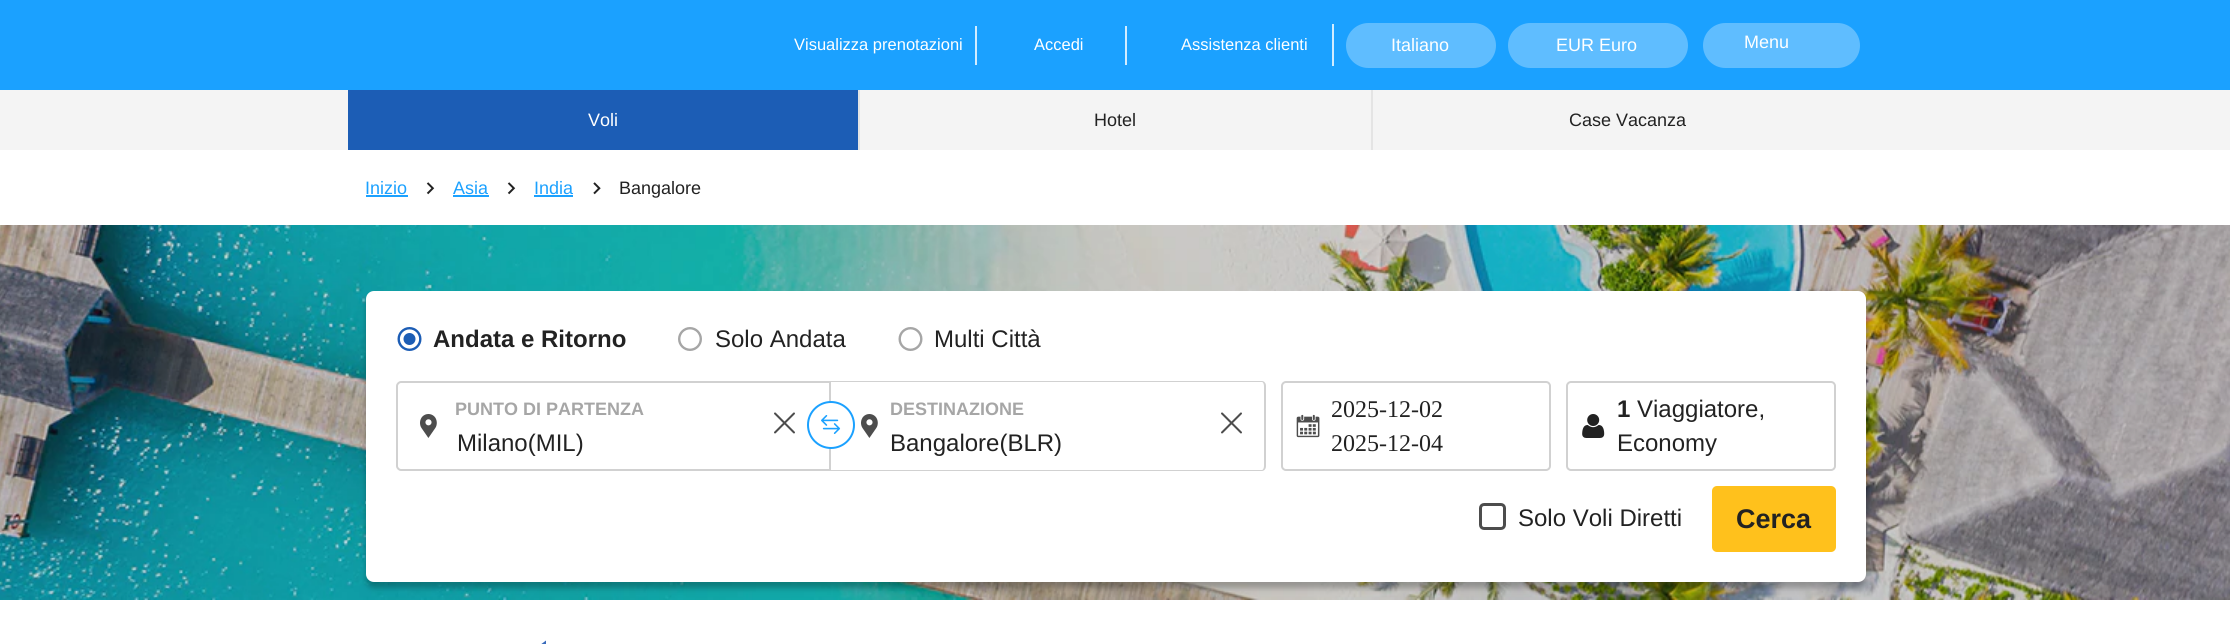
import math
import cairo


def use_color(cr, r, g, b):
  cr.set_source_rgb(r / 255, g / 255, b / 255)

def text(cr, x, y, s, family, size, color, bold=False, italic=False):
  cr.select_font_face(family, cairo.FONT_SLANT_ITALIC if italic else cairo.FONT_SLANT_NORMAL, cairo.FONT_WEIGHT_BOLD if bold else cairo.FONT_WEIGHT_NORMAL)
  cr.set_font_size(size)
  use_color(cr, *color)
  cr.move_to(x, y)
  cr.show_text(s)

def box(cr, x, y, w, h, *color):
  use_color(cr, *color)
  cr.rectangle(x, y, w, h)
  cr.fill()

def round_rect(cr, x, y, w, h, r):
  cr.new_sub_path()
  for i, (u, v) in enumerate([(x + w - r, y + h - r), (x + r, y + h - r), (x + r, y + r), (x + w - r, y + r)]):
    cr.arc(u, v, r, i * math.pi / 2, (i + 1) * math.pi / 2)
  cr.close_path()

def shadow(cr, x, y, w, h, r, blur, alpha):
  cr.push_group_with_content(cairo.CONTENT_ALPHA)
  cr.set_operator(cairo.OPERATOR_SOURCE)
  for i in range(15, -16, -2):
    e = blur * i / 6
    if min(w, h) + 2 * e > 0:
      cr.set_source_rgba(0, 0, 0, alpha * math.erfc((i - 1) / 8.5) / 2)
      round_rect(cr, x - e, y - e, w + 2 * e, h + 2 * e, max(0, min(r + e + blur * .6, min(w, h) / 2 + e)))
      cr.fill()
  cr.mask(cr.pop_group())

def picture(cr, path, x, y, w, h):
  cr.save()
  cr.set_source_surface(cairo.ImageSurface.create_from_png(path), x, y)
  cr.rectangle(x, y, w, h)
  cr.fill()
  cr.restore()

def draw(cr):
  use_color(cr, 255, 255, 255)
  cr.paint()
  box(cr, 0, 0, 2230, 90, 27, 161, 255)
  box(cr, 975, 26, 2, 39, 209, 236, 255)
  box(cr, 1125, 26, 2, 39, 209, 236, 255)
  box(cr, 1332, 24, 2, 42, 209, 236, 255)
  use_color(cr, 95, 189, 255)
  round_rect(cr, 1346, 23, 150, 45, 22.5)
  cr.fill()
  round_rect(cr, 1508, 23, 180, 45, 22.5)
  cr.fill()
  round_rect(cr, 1703, 23, 157, 45, 22.5)
  cr.fill()
  box(cr, 0, 90, 2230, 60, 244, 244, 244)
  box(cr, 348, 90, 510, 60, 28, 93, 181)
  box(cr, 858, 90, 2, 60, 228, 228, 228)
  box(cr, 1371, 90, 2, 60, 228, 228, 228)
  box(cr, 366, 195, 42, 2, 27, 161, 255)
  picture(cr, "img_01.png", 426, 182, 9, 13)
  box(cr, 453, 195, 36, 2, 27, 161, 255)
  picture(cr, "img_01.png", 507, 182, 9, 13)
  box(cr, 534, 195, 39, 2, 27, 161, 255)
  picture(cr, "img_02.png", 593, 182, 8, 13)
  picture(cr, "img_03.png", 0, 225, 2230, 375)
  use_color(cr, 0, 0, 0)
  shadow(cr, 366, 297, 1500, 291, 8, 3, 0.25)
  use_color(cr, 255, 255, 255)
  round_rect(cr, 366, 291, 1500, 291, 8)
  cr.fill()
  picture(cr, "img_04.png", 397, 327, 25, 24)
  picture(cr, "img_05.png", 678, 327, 24, 24)
  picture(cr, "img_06.png", 898, 327, 25, 24)
  cr.new_path()
  cr.move_to(401, 382)
  cr.line_to(830, 382)
  cr.line_to(830, 470)
  cr.line_to(401, 470)
  cr.curve_to(399, 470, 397, 468, 397, 466)
  cr.line_to(397, 386)
  cr.curve_to(397, 384, 399, 382, 401, 382)
  cr.close_path()
  use_color(cr, 209, 209, 209)
  cr.stroke()
  picture(cr, "img_07.png", 420, 414, 17, 24)
  picture(cr, "img_08.png", 774, 412, 21, 22)
  cr.set_fill_rule(cairo.FILL_RULE_EVEN_ODD)
  cr.new_path()
  cr.move_to(831, 381)
  cr.line_to(1262, 381)
  cr.curve_to(1264, 381, 1266, 383, 1266, 386)
  cr.line_to(1266, 466)
  cr.curve_to(1266, 469, 1264, 471, 1262, 471)
  cr.line_to(831, 471)
  cr.close_path()
  cr.move_to(831, 382)
  cr.line_to(1262, 382)
  cr.curve_to(1263, 382, 1264, 384, 1264, 386)
  cr.line_to(1264, 466)
  cr.curve_to(1264, 468, 1263, 470, 1262, 470)
  cr.line_to(831, 470)
  cr.close_path()
  cr.fill()
  use_color(cr, 255, 255, 255)
  cr.arc(831, 425, 23, 0, 2 * math.pi)
  cr.fill_preserve()
  use_color(cr, 27, 161, 255)
  cr.stroke()
  picture(cr, "img_09.png", 821, 415, 20, 19)
  picture(cr, "img_07.png", 861, 414, 17, 24)
  picture(cr, "img_08.png", 1221, 412, 21, 22)
  round_rect(cr, 1282, 382, 268, 88, 4)
  use_color(cr, 209, 209, 209)
  cr.stroke()
  picture(cr, "img_10.png", 1296, 414, 24, 24)
  round_rect(cr, 1567, 382, 268, 88, 4)
  cr.stroke()
  picture(cr, "img_11.png", 1582, 414, 23, 24)
  round_rect(cr, 1480.5, 504.5, 24, 24, 3.5)
  use_color(cr, 77, 77, 77)
  cr.set_line_width(3)
  cr.stroke()
  use_color(cr, 255, 193, 28)
  round_rect(cr, 1712, 486, 124, 66, 5)
  cr.fill()
  use_color(cr, 56, 106, 187)
  cr.set_fill_rule(cairo.FILL_RULE_WINDING)
  cr.new_path()
  cr.move_to(546, 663)
  cr.line_to(516, 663)
  cr.line_to(546, 640.5)
  cr.close_path()
  cr.fill()
  text(cr, 794, 50, "Visualizza prenotazioni", "Liberation Sans", 16.5, (255, 255, 255))
  text(cr, 1034, 50, "Accedi", "Liberation Sans", 16.5, (255, 255, 255))
  text(cr, 1181, 50, "Assistenza clienti", "Liberation Sans", 16.5, (255, 255, 255))
  text(cr, 1391, 51, "Italiano", "Liberation Sans", 18, (255, 255, 255))
  text(cr, 1556, 51, "EUR Euro", "Liberation Sans", 18, (255, 255, 255))
  text(cr, 1744, 48, "Menu", "Liberation Sans", 18, (255, 255, 255))
  text(cr, 588, 126, "Voli", "Liberation Sans", 18, (255, 255, 255))
  text(cr, 1094, 126, "Hotel", "Liberation Sans", 18, (34, 34, 34))
  text(cr, 1569, 126, "Case Vacanza", "Liberation Sans", 18, (34, 34, 34))
  text(cr, 365, 194, "Inizio", "Liberation Sans", 18, (27, 161, 255))
  text(cr, 453, 194, "Asia", "Liberation Sans", 18, (27, 161, 255))
  text(cr, 534, 194, "India", "Liberation Sans", 18, (27, 161, 255))
  text(cr, 619, 194, "Bangalore", "Liberation Sans", 18, (34, 34, 34))
  text(cr, 433, 347, "Andata e Ritorno", "Liberation Sans", 24, (34, 34, 34), bold=True)
  text(cr, 715, 347, "Solo Andata", "Liberation Sans", 24, (34, 34, 34))
  text(cr, 934, 347, "Multi Città", "Liberation Sans", 24, (34, 34, 34))
  text(cr, 455, 415, "PUNTO DI PARTENZA", "Liberation Sans", 18, (166, 166, 166), bold=True)
  text(cr, 457, 451, "Milano(MIL)", "Liberation Sans", 24, (34, 34, 34))
  text(cr, 890, 415, "DESTINAZIONE", "Liberation Sans", 18, (166, 166, 166), bold=True)
  text(cr, 890, 451, "Bangalore(BLR)", "Liberation Sans", 24, (34, 34, 34))
  text(cr, 1331, 417, "2025-12-02", "Liberation Serif", 24, (34, 34, 34))
  text(cr, 1331, 451, "2025-12-04", "Liberation Serif", 24, (34, 34, 34))
  text(cr, 1617, 417, "1", "Liberation Sans", 24, (34, 34, 34), bold=True)
  text(cr, 1637, 417, "Viaggiatore,", "Liberation Sans", 24, (34, 34, 34))
  text(cr, 1617, 451, "Economy", "Liberation Sans", 24, (34, 34, 34))
  text(cr, 1518, 526, "Solo Voli Diretti", "Liberation Sans", 24, (34, 34, 34))
  text(cr, 1736, 528, "Cerca", "Liberation Sans", 27, (34, 34, 34), bold=True)


surface = cairo.ImageSurface(cairo.FORMAT_RGB24, 2230, 644)
cr = cairo.Context(surface)
options = cairo.FontOptions()
options.set_hint_metrics(cairo.HINT_METRICS_OFF)
options.set_hint_style(cairo.HINT_STYLE_NONE)
cr.set_font_options(options)
cr.set_miter_limit(4)
draw(cr)
surface.write_to_png("out.png")
